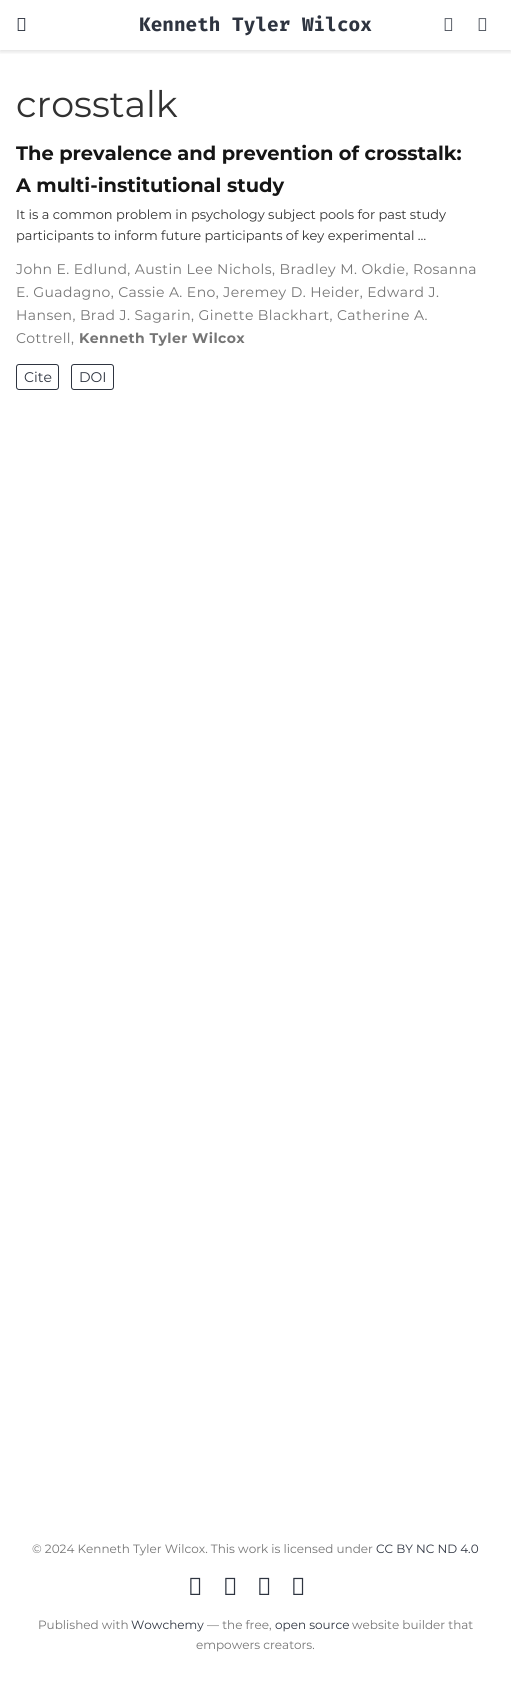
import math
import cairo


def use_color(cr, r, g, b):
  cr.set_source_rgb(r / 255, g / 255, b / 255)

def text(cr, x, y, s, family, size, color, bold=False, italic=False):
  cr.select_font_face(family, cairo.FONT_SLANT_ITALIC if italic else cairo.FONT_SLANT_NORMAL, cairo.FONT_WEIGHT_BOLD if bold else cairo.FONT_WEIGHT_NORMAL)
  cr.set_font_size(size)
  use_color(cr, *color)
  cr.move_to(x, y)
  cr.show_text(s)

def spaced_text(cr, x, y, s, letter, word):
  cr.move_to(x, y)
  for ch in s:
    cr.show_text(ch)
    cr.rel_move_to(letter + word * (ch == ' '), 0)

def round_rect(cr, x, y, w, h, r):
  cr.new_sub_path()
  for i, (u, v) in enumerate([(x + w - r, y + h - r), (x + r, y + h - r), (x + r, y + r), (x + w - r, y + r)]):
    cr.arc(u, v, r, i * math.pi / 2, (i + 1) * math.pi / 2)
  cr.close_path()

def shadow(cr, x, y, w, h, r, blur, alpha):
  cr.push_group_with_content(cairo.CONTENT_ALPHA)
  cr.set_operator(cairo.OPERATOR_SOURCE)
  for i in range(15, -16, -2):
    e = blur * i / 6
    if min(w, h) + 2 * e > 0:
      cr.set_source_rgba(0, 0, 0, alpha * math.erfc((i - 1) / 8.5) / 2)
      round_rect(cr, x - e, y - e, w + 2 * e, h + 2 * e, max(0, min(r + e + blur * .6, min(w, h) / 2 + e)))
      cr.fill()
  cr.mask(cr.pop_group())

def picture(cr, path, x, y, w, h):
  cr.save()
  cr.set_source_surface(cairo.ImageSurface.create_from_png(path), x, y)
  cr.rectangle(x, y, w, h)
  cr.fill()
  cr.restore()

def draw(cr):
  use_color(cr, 255, 255, 255)
  cr.paint()
  cr.save()
  cr.rectangle(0, 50, 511, 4)
  cr.clip()
  use_color(cr, 0, 0, 0)
  shadow(cr, 0, 2, 511, 50, 0, 2, 0.11)
  cr.restore()
  picture(cr, "img_01.png", 17, 18, 9, 13)
  picture(cr, "img_02.png", 444, 18, 9, 13)
  picture(cr, "img_02.png", 478, 18, 9, 13)
  round_rect(cr, 16.5, 364.5, 42, 25, 2.5)
  use_color(cr, 46, 52, 64)
  cr.set_line_width(1)
  cr.stroke()
  round_rect(cr, 71.5, 364.5, 42, 25, 2.5)
  cr.stroke()
  picture(cr, "img_03.png", 190, 1577, 11, 18)
  picture(cr, "img_03.png", 225, 1577, 11, 18)
  picture(cr, "img_03.png", 259, 1577, 11, 18)
  picture(cr, "img_03.png", 293, 1577, 11, 18)
  text(cr, 139, 31, "Kenneth Tyler Wilcox", "Fira Code", 19.4, (46, 52, 64), bold=True)
  text(cr, 16, 117, "crosstalk", "Montserrat", 36.5, (49, 49, 49))
  text(cr, 16, 160, "The prevalence and prevention of crosstalk:", "Montserrat", 19.4, (21, 21, 21), bold=True)
  text(cr, 16, 192, "A multi-institutional study", "Montserrat", 19.4, (21, 21, 21), bold=True)
  text(cr, 16, 219, "It is a common problem in psychology subject pools for past study", "Montserrat", 12.95, (49, 49, 49))
  text(cr, 16, 240, "participants to inform future participants of key experimental …", "Montserrat", 12.95, (49, 49, 49))
  cr.set_font_size(14)
  use_color(cr, 117, 117, 117)
  spaced_text(cr, 16, 274, "John E. Edlund, Austin Lee Nichols, Bradley M. Okdie, Rosanna", 0.42, 0)
  spaced_text(cr, 16, 297, "E. Guadagno, Cassie A. Eno, Jeremey D. Heider, Edward J.", 0.42, 0)
  spaced_text(cr, 16, 320, "Hansen, Brad J. Sagarin, Ginette Blackhart, Catherine A.", 0.42, 0)
  spaced_text(cr, 16, 343, "Cottrell,", 0.42, 0)
  cr.select_font_face("Montserrat", cairo.FONT_SLANT_NORMAL, cairo.FONT_WEIGHT_BOLD)
  spaced_text(cr, 79, 343, "Kenneth Tyler Wilcox", 0.42, 0)
  text(cr, 24, 382, "Cite", "Montserrat", 14, (46, 52, 64))
  text(cr, 79, 382, "DOI", "Montserrat", 14, (46, 52, 64))
  text(cr, 32, 1553, "© 2024 Kenneth Tyler Wilcox. This work is licensed under", "Montserrat", 12, (117, 117, 117))
  text(cr, 376, 1553, "CC BY NC ND 4.0", "Montserrat", 12, (46, 52, 64))
  text(cr, 38, 1629, "Published with", "Montserrat", 12, (117, 117, 117))
  text(cr, 131, 1629, "Wowchemy", "Montserrat", 12, (46, 52, 64))
  text(cr, 207, 1629, "— the free,", "Montserrat", 12, (117, 117, 117))
  text(cr, 275, 1629, "open source", "Montserrat", 12, (46, 52, 64))
  text(cr, 352, 1629, "website builder that", "Montserrat", 12, (117, 117, 117))
  text(cr, 196, 1649, "empowers creators.", "Montserrat", 12, (117, 117, 117))


surface = cairo.ImageSurface(cairo.FORMAT_RGB24, 511, 1705)
cr = cairo.Context(surface)
options = cairo.FontOptions()
options.set_hint_metrics(cairo.HINT_METRICS_OFF)
options.set_hint_style(cairo.HINT_STYLE_NONE)
cr.set_font_options(options)
cr.set_miter_limit(4)
draw(cr)
surface.write_to_png("out.png")
